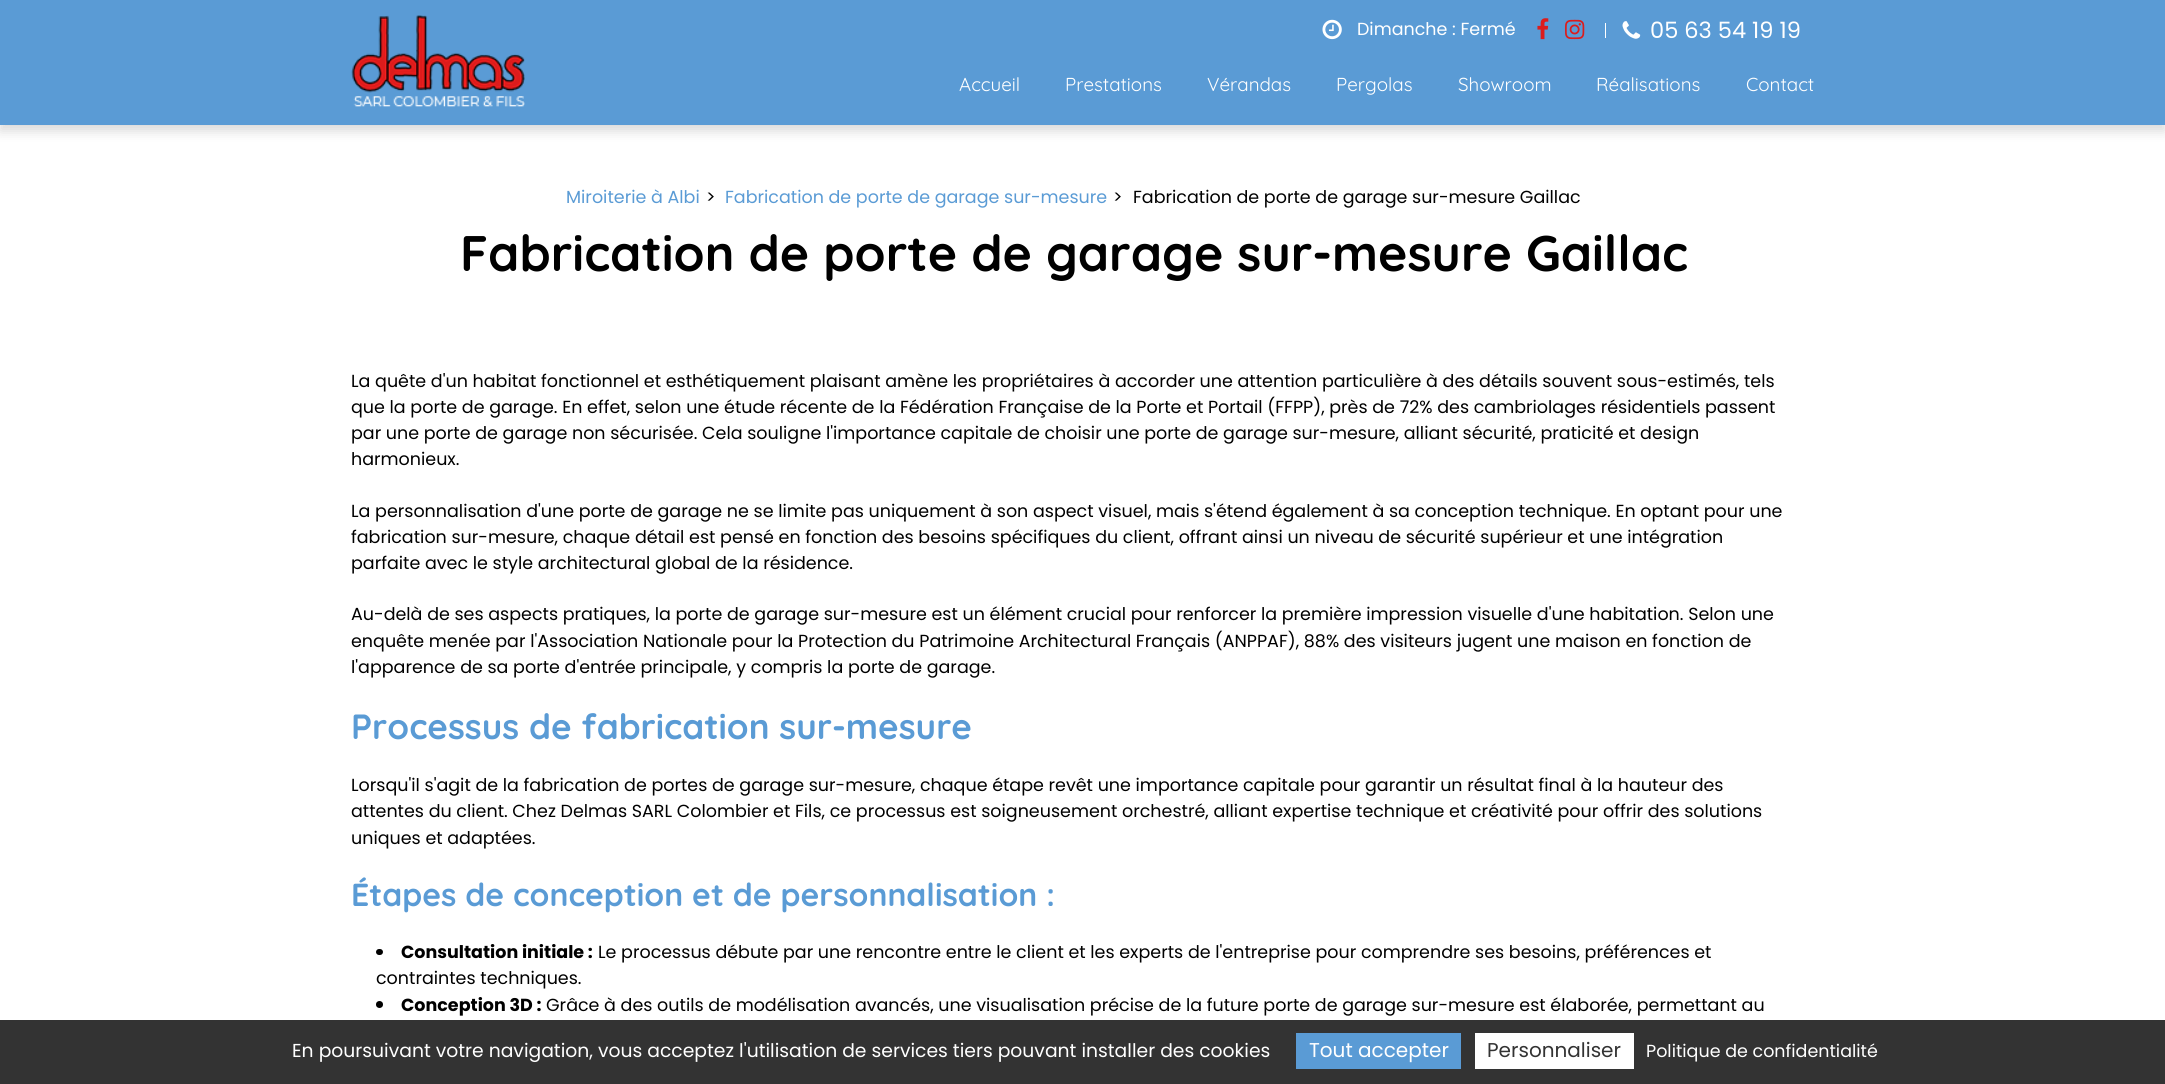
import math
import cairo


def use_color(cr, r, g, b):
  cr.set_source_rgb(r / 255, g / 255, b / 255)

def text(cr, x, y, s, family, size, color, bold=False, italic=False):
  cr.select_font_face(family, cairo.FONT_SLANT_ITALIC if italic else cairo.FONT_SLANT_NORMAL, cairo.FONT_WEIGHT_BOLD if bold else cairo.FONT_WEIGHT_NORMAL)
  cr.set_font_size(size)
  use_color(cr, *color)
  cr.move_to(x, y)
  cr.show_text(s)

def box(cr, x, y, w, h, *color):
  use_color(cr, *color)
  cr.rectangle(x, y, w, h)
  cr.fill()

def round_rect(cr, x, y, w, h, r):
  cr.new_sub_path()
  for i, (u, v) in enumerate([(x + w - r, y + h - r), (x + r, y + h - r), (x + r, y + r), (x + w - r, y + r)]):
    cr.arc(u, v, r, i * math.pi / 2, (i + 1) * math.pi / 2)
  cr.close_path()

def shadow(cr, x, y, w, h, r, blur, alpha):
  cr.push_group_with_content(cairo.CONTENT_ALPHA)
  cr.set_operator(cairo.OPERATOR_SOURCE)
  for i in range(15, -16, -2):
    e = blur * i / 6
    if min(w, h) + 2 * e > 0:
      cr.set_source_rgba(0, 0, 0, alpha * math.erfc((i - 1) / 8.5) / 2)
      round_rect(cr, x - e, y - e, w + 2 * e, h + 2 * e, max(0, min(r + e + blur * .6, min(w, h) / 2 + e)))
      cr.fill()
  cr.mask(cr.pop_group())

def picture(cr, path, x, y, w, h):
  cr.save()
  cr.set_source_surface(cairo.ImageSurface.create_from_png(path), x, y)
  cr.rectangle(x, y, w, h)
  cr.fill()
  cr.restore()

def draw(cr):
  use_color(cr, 255, 255, 255)
  cr.paint()
  use_color(cr, 0, 0, 0)
  shadow(cr, 0, 6, 2165, 125, 0, 6, 0.15)
  box(cr, 0, 0, 2165, 125, 90, 155, 213)
  picture(cr, "img_01.png", 351, 15, 174, 92)
  picture(cr, "img_02.png", 1322, 19, 20, 21)
  picture(cr, "img_03.png", 1537, 18, 12, 22)
  picture(cr, "img_04.png", 1565, 19, 20, 21)
  box(cr, 1605, 23, 1, 15, 255, 255, 255)
  picture(cr, "img_05.png", 1622, 21, 19, 18)
  use_color(cr, 0, 0, 0)
  round_rect(cr, 376, 949, 7, 6, 3)
  cr.fill()
  cr.arc(379.5, 1004.5, 3.5, 0, 2 * math.pi)
  cr.fill()
  box(cr, 0, 1020, 2165, 64, 51, 51, 51)
  box(cr, 1296, 1033, 165, 36, 90, 155, 213)
  box(cr, 1475, 1033, 159, 36, 255, 255, 255)
  text(cr, 1357, 35, "Dimanche : Fermé", "Poppins", 17.5, (255, 255, 255))
  text(cr, 1650, 38, "05 63 54 19 19", "Poppins", 22.5, (255, 255, 255))
  text(cr, 959, 91, "Accueil", "Quicksand", 18.75, (255, 255, 255))
  text(cr, 1065, 91, "Prestations", "Quicksand", 18.75, (255, 255, 255))
  text(cr, 1207, 91, "Vérandas", "Quicksand", 18.75, (255, 255, 255))
  text(cr, 1336, 91, "Pergolas", "Quicksand", 18.75, (255, 255, 255))
  text(cr, 1458, 91, "Showroom", "Quicksand", 18.75, (255, 255, 255))
  text(cr, 1596, 91, "Réalisations", "Quicksand", 18.75, (255, 255, 255))
  text(cr, 1746, 91, "Contact", "Quicksand", 18.75, (255, 255, 255))
  text(cr, 566, 203, "Miroiterie à Albi", "Poppins", 17.5, (90, 155, 213))
  text(cr, 706, 203, ">", "Poppins", 17.5, (0, 0, 0))
  text(cr, 725, 203, "Fabrication de porte de garage sur-mesure", "Poppins", 17.5, (90, 155, 213))
  text(cr, 1113, 203, ">", "Poppins", 17.5, (0, 0, 0))
  text(cr, 1133, 203, "Fabrication de porte de garage sur-mesure Gaillac", "Poppins", 17.5, (0, 0, 0))
  text(cr, 460, 271, "Fabrication de porte de garage sur-mesure Gaillac", "Quicksand", 49.9, (0, 0, 0), bold=True)
  text(cr, 351, 387, "La quête d'un habitat fonctionnel et esthétiquement plaisant amène les propriétaires à accorder une attention particulière à des détails souvent sous-estimés, tels", "Poppins", 17.5, (0, 0, 0))
  text(cr, 351, 413, "que la porte de garage. En effet, selon une étude récente de la Fédération Française de la Porte et Portail (FFPP), près de 72% des cambriolages résidentiels passent", "Poppins", 17.5, (0, 0, 0))
  text(cr, 351, 439, "par une porte de garage non sécurisée. Cela souligne l'importance capitale de choisir une porte de garage sur-mesure, alliant sécurité, praticité et design", "Poppins", 17.5, (0, 0, 0))
  text(cr, 351, 465, "harmonieux.", "Poppins", 17.5, (0, 0, 0))
  text(cr, 351, 517, "La personnalisation d'une porte de garage ne se limite pas uniquement à son aspect visuel, mais s'étend également à sa conception technique. En optant pour une", "Poppins", 17.5, (0, 0, 0))
  text(cr, 351, 543, "fabrication sur-mesure, chaque détail est pensé en fonction des besoins spécifiques du client, offrant ainsi un niveau de sécurité supérieur et une intégration", "Poppins", 17.5, (0, 0, 0))
  text(cr, 351, 569, "parfaite avec le style architectural global de la résidence.", "Poppins", 17.5, (0, 0, 0))
  text(cr, 351, 620, "Au-delà de ses aspects pratiques, la porte de garage sur-mesure est un élément crucial pour renforcer la première impression visuelle d'une habitation. Selon une", "Poppins", 17.5, (0, 0, 0))
  text(cr, 351, 647, "enquête menée par l'Association Nationale pour la Protection du Patrimoine Architectural Français (ANPPAF), 88% des visiteurs jugent une maison en fonction de", "Poppins", 17.5, (0, 0, 0))
  text(cr, 351, 673, "l'apparence de sa porte d'entrée principale, y compris la porte de garage.", "Poppins", 17.5, (0, 0, 0))
  text(cr, 351, 739, "Processus de fabrication sur-mesure", "Quicksand", 35, (90, 155, 213), bold=True)
  text(cr, 351, 791, "Lorsqu'il s'agit de la fabrication de portes de garage sur-mesure, chaque étape revêt une importance capitale pour garantir un résultat final à la hauteur des", "Poppins", 17.5, (0, 0, 0))
  text(cr, 351, 817, "attentes du client. Chez Delmas SARL Colombier et Fils, ce processus est soigneusement orchestré, alliant expertise technique et créativité pour offrir des solutions", "Poppins", 17.5, (0, 0, 0))
  text(cr, 351, 844, "uniques et adaptées.", "Poppins", 17.5, (0, 0, 0))
  text(cr, 351, 906, "Étapes de conception et de personnalisation :", "Quicksand", 31.85, (90, 155, 213), bold=True)
  text(cr, 401, 958, "Consultation initiale :", "Poppins", 17.5, (0, 0, 0), bold=True)
  text(cr, 598, 958, "Le processus débute par une rencontre entre le client et les experts de l'entreprise pour comprendre ses besoins, préférences et", "Poppins", 17.5, (0, 0, 0))
  text(cr, 376, 984, "contraintes techniques.", "Poppins", 17.5, (0, 0, 0))
  text(cr, 401, 1011, "Conception 3D :", "Poppins", 17.5, (0, 0, 0), bold=True)
  text(cr, 546, 1011, "Grâce à des outils de modélisation avancés, une visualisation précise de la future porte de garage sur-mesure est élaborée, permettant au", "Poppins", 17.5, (0, 0, 0))
  text(cr, 292, 1057, "En poursuivant votre navigation, vous acceptez l'utilisation de services tiers pouvant installer des cookies", "Poppins", 18.75, (255, 255, 255))
  text(cr, 1309, 1057, "Tout accepter", "Poppins", 20, (255, 255, 255))
  text(cr, 1487, 1057, "Personnaliser", "Poppins", 20, (51, 51, 51))
  text(cr, 1646, 1057, "Politique de confidentialité", "Poppins", 17.5, (255, 255, 255))


surface = cairo.ImageSurface(cairo.FORMAT_RGB24, 2165, 1084)
cr = cairo.Context(surface)
options = cairo.FontOptions()
options.set_hint_metrics(cairo.HINT_METRICS_OFF)
options.set_hint_style(cairo.HINT_STYLE_NONE)
cr.set_font_options(options)
cr.set_miter_limit(4)
draw(cr)
surface.write_to_png("out.png")
